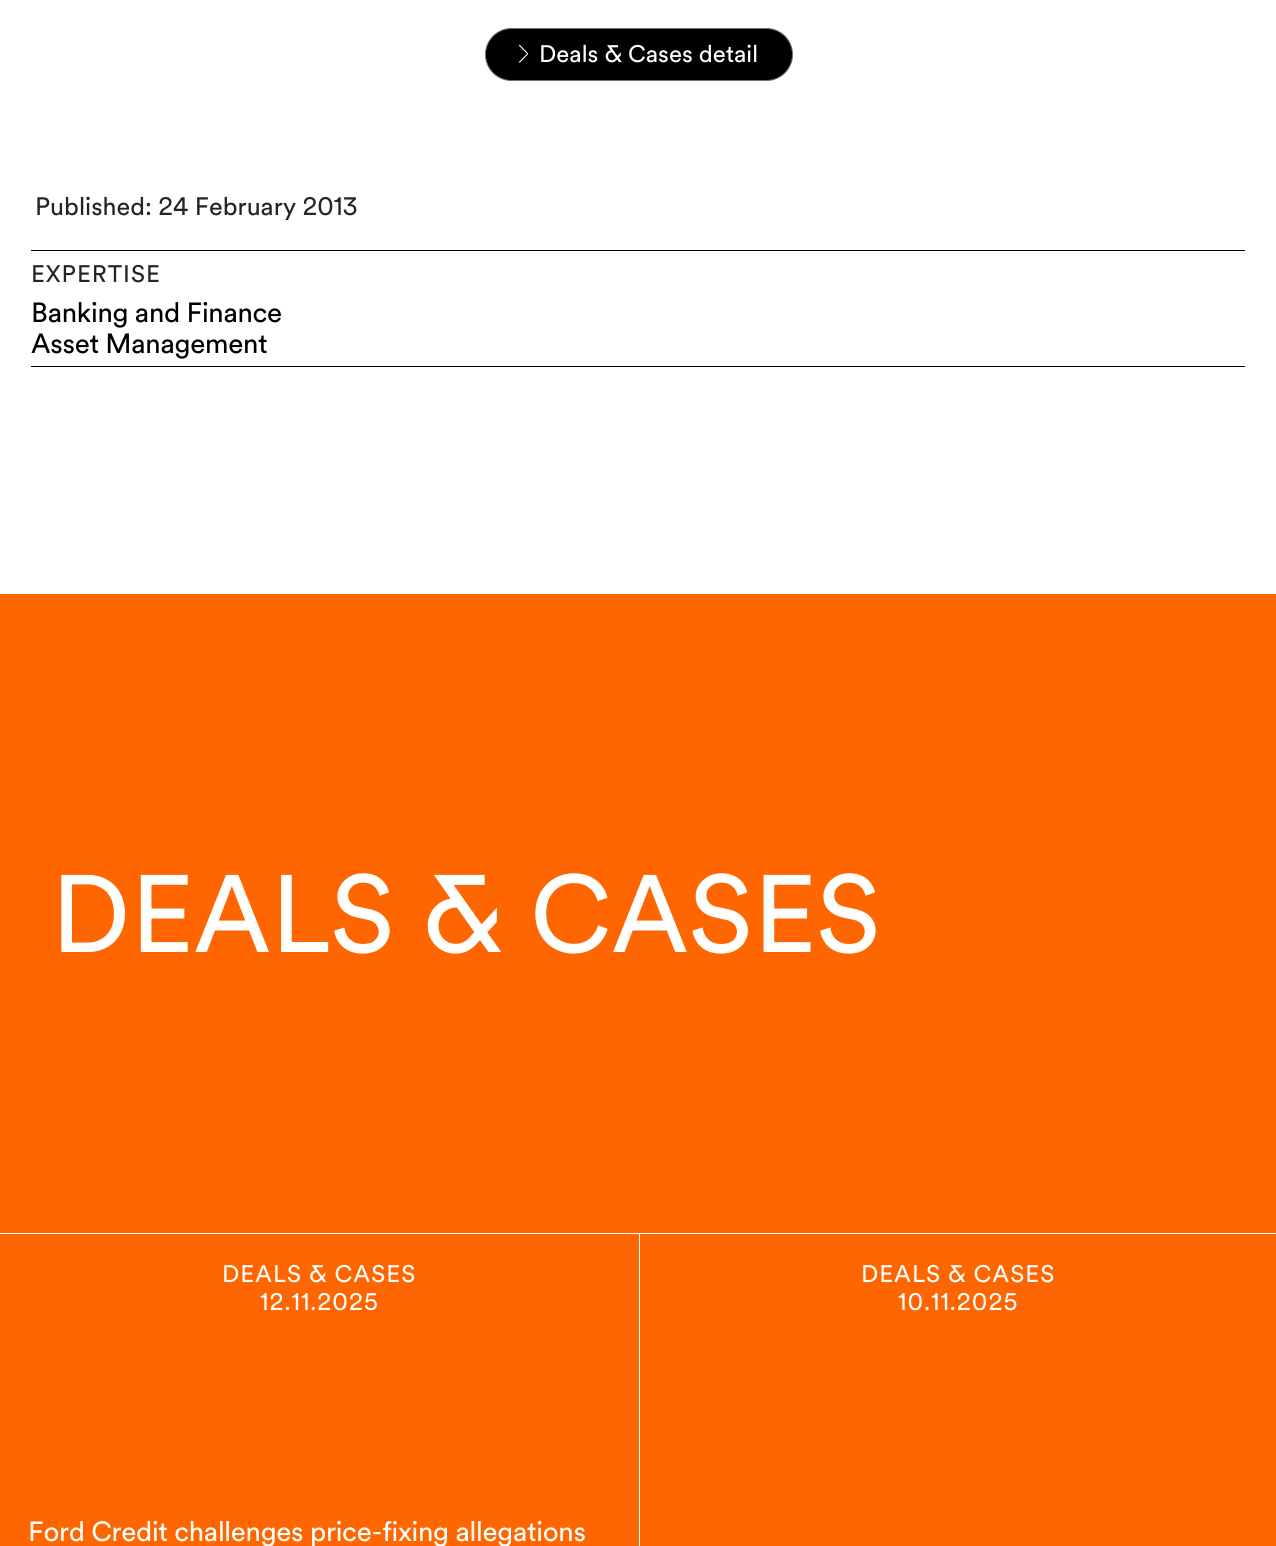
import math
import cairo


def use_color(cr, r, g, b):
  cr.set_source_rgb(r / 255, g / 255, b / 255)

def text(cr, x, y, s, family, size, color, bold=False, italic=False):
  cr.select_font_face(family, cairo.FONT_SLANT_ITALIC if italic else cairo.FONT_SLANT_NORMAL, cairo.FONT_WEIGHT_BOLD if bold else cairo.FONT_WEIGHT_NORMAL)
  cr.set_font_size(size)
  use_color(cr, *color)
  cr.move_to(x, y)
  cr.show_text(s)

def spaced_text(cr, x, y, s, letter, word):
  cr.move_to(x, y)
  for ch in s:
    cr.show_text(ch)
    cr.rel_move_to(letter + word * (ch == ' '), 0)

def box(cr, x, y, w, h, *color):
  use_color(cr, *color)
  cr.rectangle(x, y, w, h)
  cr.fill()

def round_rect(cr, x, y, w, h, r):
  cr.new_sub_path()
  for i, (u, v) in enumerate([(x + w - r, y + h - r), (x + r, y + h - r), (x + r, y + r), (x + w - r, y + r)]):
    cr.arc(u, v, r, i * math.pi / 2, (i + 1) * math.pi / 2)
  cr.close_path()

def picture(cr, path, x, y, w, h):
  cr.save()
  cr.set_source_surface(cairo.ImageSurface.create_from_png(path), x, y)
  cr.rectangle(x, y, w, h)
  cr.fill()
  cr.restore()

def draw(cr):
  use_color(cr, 255, 255, 255)
  cr.paint()
  use_color(cr, 0, 0, 0)
  round_rect(cr, 485.5, 28.5, 307, 52, 26)
  cr.fill_preserve()
  use_color(cr, 112, 112, 112)
  cr.set_line_width(1)
  cr.stroke()
  picture(cr, "img_01.png", 519, 44, 9, 19)
  box(cr, 31, 250, 1214, 1, 0, 0, 0)
  box(cr, 31, 366, 1214, 1, 0, 0, 0)
  box(cr, 0, 594, 1276, 639, 255, 102, 0)
  box(cr, 0, 1234, 639, 312, 255, 102, 0)
  box(cr, 640, 1234, 636, 312, 255, 102, 0)
  text(cr, 539, 62, "Deals & Cases detail", "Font", 23.75, (255, 255, 255))
  text(cr, 35, 215, "Published: 24 February 2013", "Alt", 25, (33, 37, 41))
  cr.select_font_face("Font")
  cr.set_font_size(23.75)
  spaced_text(cr, 31, 282, "EXPERTISE", 1, 0)
  cr.set_font_size(27.5)
  use_color(cr, 0, 0, 0)
  spaced_text(cr, 31, 322, "Banking and Finance", -0.3, 0)
  spaced_text(cr, 31, 353, "Asset Management", -0.3, 0)
  text(cr, 51, 952, "DEALS & CASES", "Font", 108.75, (255, 255, 255))
  cr.set_font_size(23.75)
  spaced_text(cr, 222, 1282, "DEALS & CASES", 1, 0)
  cr.select_font_face("Alt")
  spaced_text(cr, 260, 1310, "12.11.2025", 1, 0)
  cr.select_font_face("Font")
  cr.set_font_size(27.5)
  spaced_text(cr, 28, 1541, "Ford Credit challenges price-fixing allegations", -0.3, 0)
  cr.set_font_size(23.75)
  spaced_text(cr, 861, 1282, "DEALS & CASES", 1, 0)
  cr.select_font_face("Alt")
  spaced_text(cr, 898, 1310, "10.11.2025", 1, 0)


surface = cairo.ImageSurface(cairo.FORMAT_RGB24, 1276, 1546)
cr = cairo.Context(surface)
options = cairo.FontOptions()
options.set_hint_metrics(cairo.HINT_METRICS_OFF)
options.set_hint_style(cairo.HINT_STYLE_NONE)
cr.set_font_options(options)
cr.set_miter_limit(4)
draw(cr)
surface.write_to_png("out.png")
